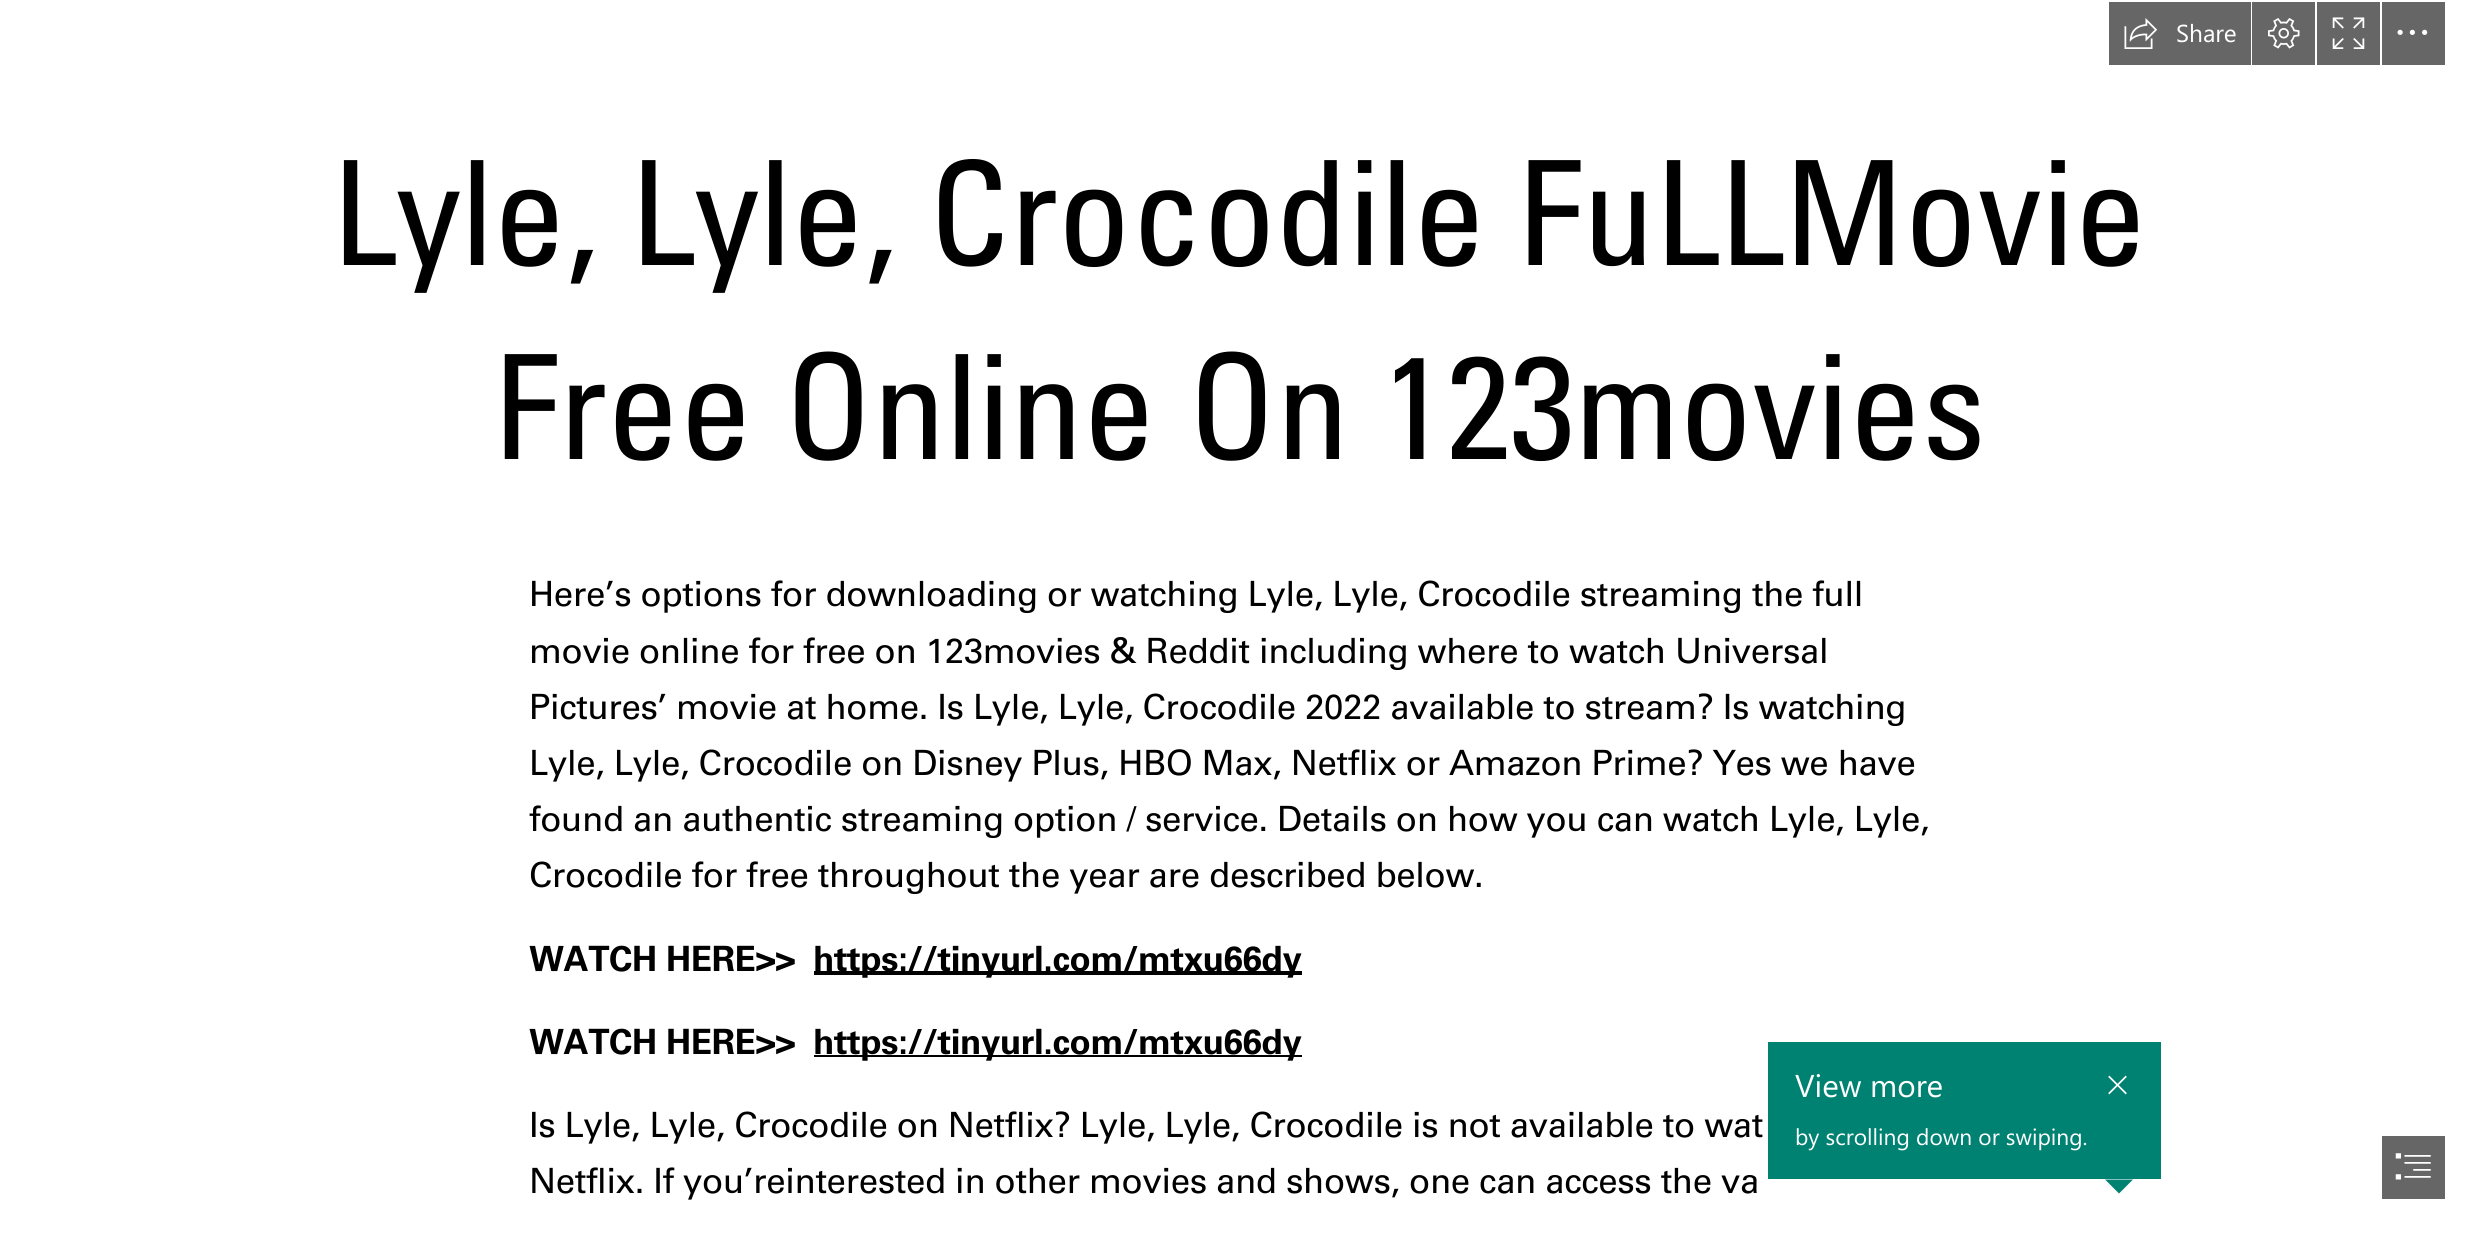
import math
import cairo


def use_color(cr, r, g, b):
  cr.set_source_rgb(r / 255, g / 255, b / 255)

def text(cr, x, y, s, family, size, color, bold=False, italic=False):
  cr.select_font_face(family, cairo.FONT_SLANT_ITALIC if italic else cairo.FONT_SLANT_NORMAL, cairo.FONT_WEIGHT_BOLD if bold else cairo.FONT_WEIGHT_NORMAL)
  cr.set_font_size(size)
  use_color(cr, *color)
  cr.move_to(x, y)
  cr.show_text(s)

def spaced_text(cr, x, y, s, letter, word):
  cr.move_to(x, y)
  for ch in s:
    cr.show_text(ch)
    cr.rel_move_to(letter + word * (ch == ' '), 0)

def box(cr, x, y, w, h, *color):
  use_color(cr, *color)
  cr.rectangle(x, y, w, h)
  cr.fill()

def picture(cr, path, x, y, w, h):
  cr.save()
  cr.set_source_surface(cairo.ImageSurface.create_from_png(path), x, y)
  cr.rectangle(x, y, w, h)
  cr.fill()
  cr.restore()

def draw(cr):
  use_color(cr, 255, 255, 255)
  cr.paint()
  box(cr, 2109, 2, 142, 63, 102, 102, 102)
  picture(cr, "img_01.png", 2124, 18, 34, 31)
  box(cr, 2252, 2, 63, 63, 102, 102, 102)
  picture(cr, "img_02.png", 2268, 18, 32, 31)
  box(cr, 2317, 2, 63, 63, 102, 102, 102)
  picture(cr, "img_03.png", 2332, 17, 33, 32)
  box(cr, 2382, 2, 63, 63, 102, 102, 102)
  picture(cr, "img_04.png", 2397, 29, 31, 6)
  box(cr, 814, 971, 488, 4, 0, 0, 0)
  box(cr, 814, 1055, 488, 2, 0, 0, 0)
  box(cr, 1768, 1042, 393, 137, 0, 130, 114)
  picture(cr, "img_05.png", 2108, 1075, 19, 20)
  cr.new_path()
  cr.move_to(2105, 1179.5)
  cr.line_to(2133, 1179.5)
  cr.line_to(2119, 1193.5)
  cr.close_path()
  cr.fill()
  box(cr, 2382, 1136, 63, 63, 102, 102, 102)
  picture(cr, "img_06.png", 2395, 1153, 36, 27)
  text(cr, 2176, 42, "Share", "Segoe UI", 24.5, (255, 255, 255))
  text(cr, 332, 265, "Lyle, Lyle, Crocodile FuLLMovie", "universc", 145.25, (0, 0, 0))
  text(cr, 494, 459, "Free Online On 123movies", "universc", 145.25, (0, 0, 0))
  cr.select_font_face("univers")
  cr.set_font_size(34.85)
  spaced_text(cr, 529, 606, "Here’s options for downloading or watching Lyle, Lyle, Crocodile streaming the full", -0.4, 0)
  spaced_text(cr, 529, 663, "movie online for free on 123movies & Reddit including where to watch Universal", -0.4, 0)
  spaced_text(cr, 529, 719, "Pictures’ movie at home. Is Lyle, Lyle, Crocodile 2022 available to stream? Is watching", -0.4, 0)
  spaced_text(cr, 529, 775, "Lyle, Lyle, Crocodile on Disney Plus, HBO Max, Netflix or Amazon Prime? Yes we have", -0.4, 0)
  spaced_text(cr, 529, 831, "found an authentic streaming option / service. Details on how you can watch Lyle, Lyle,", -0.4, 0)
  spaced_text(cr, 529, 887, "Crocodile for free throughout the year are described below.", -0.4, 0)
  cr.select_font_face("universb", cairo.FONT_SLANT_NORMAL, cairo.FONT_WEIGHT_BOLD)
  spaced_text(cr, 529, 971, "WATCH HERE>>", -0.4, 0)
  spaced_text(cr, 813, 971, "https://tinyurl.com/mtxu66dy", -0.4, 0)
  spaced_text(cr, 529, 1054, "WATCH HERE>>", -0.4, 0)
  spaced_text(cr, 813, 1054, "https://tinyurl.com/mtxu66dy", -0.4, 0)
  cr.select_font_face("univers")
  spaced_text(cr, 529, 1137, "Is Lyle, Lyle, Crocodile on Netflix? Lyle, Lyle, Crocodile is not available to wat", -0.4, 0)
  spaced_text(cr, 529, 1193, "Netflix. If you’reinterested in other movies and shows, one can access the va", -0.4, 0)
  text(cr, 1795, 1097, "View more", "Segoe UI", 31.5, (255, 255, 255))
  text(cr, 1795, 1145, "by scrolling down or swiping.", "Segoe UI", 22.75, (255, 255, 255))


surface = cairo.ImageSurface(cairo.FORMAT_RGB24, 2479, 1234)
cr = cairo.Context(surface)
options = cairo.FontOptions()
options.set_hint_metrics(cairo.HINT_METRICS_OFF)
options.set_hint_style(cairo.HINT_STYLE_NONE)
cr.set_font_options(options)
cr.set_miter_limit(4)
draw(cr)
surface.write_to_png("out.png")
